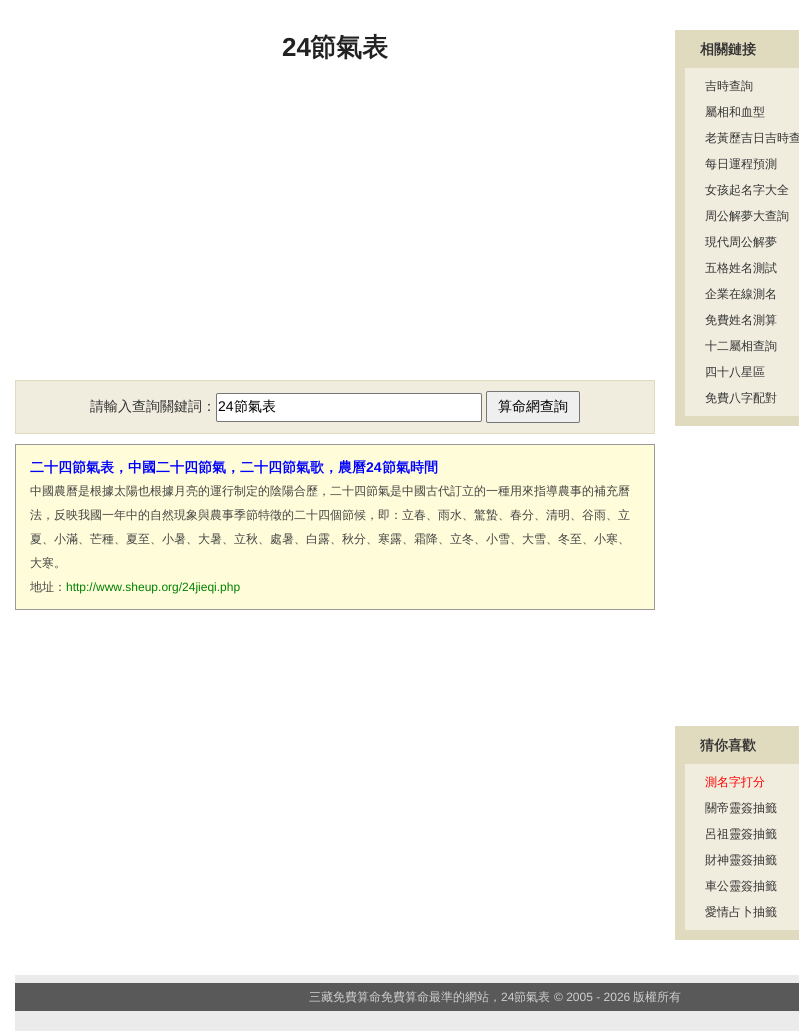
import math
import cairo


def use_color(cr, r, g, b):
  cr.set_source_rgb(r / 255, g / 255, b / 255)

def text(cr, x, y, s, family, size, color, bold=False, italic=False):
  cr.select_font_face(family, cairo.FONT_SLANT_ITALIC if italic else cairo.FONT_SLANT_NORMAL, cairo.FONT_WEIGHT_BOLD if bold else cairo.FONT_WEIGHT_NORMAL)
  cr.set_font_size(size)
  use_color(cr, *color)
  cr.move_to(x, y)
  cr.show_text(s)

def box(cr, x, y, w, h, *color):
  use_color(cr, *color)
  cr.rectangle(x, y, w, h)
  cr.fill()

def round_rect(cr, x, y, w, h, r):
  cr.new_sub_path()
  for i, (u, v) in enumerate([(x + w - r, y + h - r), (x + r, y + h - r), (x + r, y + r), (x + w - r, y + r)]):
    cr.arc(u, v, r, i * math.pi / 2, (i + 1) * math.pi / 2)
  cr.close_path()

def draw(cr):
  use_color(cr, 255, 255, 255)
  cr.paint()
  use_color(cr, 240, 237, 223)
  cr.rectangle(15.5, 380.5, 639, 53)
  cr.fill_preserve()
  use_color(cr, 224, 219, 190)
  cr.set_line_width(1)
  cr.stroke()
  use_color(cr, 255, 255, 255)
  round_rect(cr, 216.5, 393.5, 265, 28, 1.5)
  cr.fill_preserve()
  use_color(cr, 118, 118, 118)
  cr.stroke()
  use_color(cr, 239, 239, 239)
  round_rect(cr, 486.5, 391.5, 93, 31, 1.5)
  cr.fill_preserve()
  use_color(cr, 118, 118, 118)
  cr.stroke()
  use_color(cr, 255, 253, 217)
  cr.rectangle(15.5, 444.5, 639, 165)
  cr.fill_preserve()
  use_color(cr, 153, 153, 153)
  cr.stroke()
  box(cr, 675, 30, 124, 396, 224, 219, 190)
  box(cr, 685, 68, 114, 348, 240, 237, 223)
  box(cr, 675, 726, 124, 214, 224, 219, 190)
  box(cr, 685, 764, 114, 166, 240, 237, 223)
  box(cr, 15, 975, 784, 56, 235, 235, 235)
  box(cr, 15, 983, 784, 28, 89, 89, 89)
  text(cr, 282, 56, "24", "Liberation Sans", 26, (34, 34, 34), bold=True)
  text(cr, 310, 56, "節氣表", "WenQuanYi Zen Hei", 26, (34, 34, 34), bold=True)
  text(cr, 90, 411, "請輸入查詢關鍵詞：", "WenQuanYi Zen Hei Medium", 14, (51, 51, 51))
  text(cr, 218, 411, "24", "Liberation Sans", 14, (0, 0, 0))
  text(cr, 234, 411, "節氣表", "WenQuanYi Zen Hei Medium", 14, (0, 0, 0))
  text(cr, 498, 411, "算命網查詢", "WenQuanYi Zen Hei Medium", 14, (0, 0, 0))
  text(cr, 30, 472, "二十四節氣表，中國二十四節氣，二十四節氣歌，農曆", "WenQuanYi Zen Hei", 14, (0, 0, 255), bold=True)
  text(cr, 366, 472, "24", "Liberation Sans", 14, (0, 0, 255), bold=True)
  text(cr, 382, 472, "節氣時間", "WenQuanYi Zen Hei", 14, (0, 0, 255), bold=True)
  text(cr, 30, 495, "中國農曆是根據太陽也根據月亮的運行制定的陰陽合歷，二十四節氣是中國古代訂立的一種用來指導農事的補充曆", "WenQuanYi Zen Hei Medium", 12, (68, 68, 68))
  text(cr, 30, 519, "法，反映我國一年中的自然現象與農事季節特徵的二十四個節候，即：立春、雨水、驚蟄、春分、清明、谷雨、立", "WenQuanYi Zen Hei Medium", 12, (68, 68, 68))
  text(cr, 30, 543, "夏、小滿、芒種、夏至、小暑、大暑、立秋、處暑、白露、秋分、寒露、霜降、立冬、小雪、大雪、冬至、小寒、", "WenQuanYi Zen Hei Medium", 12, (68, 68, 68))
  text(cr, 30, 567, "大寒。", "WenQuanYi Zen Hei Medium", 12, (68, 68, 68))
  text(cr, 30, 591, "地址：", "WenQuanYi Zen Hei Medium", 12, (68, 68, 68))
  text(cr, 66, 591, "http://www.sheup.org/24jieqi.php", "Liberation Sans", 12, (0, 128, 0))
  text(cr, 700, 54, "相關鏈接", "WenQuanYi Zen Hei", 14, (51, 51, 51), bold=True)
  text(cr, 705, 90, "吉時查詢", "WenQuanYi Zen Hei Medium", 12, (51, 51, 51))
  text(cr, 705, 116, "屬相和血型", "WenQuanYi Zen Hei Medium", 12, (51, 51, 51))
  text(cr, 705, 142, "老黃歷吉日吉時查", "WenQuanYi Zen Hei Medium", 12, (51, 51, 51))
  text(cr, 705, 168, "每日運程預測", "WenQuanYi Zen Hei Medium", 12, (51, 51, 51))
  text(cr, 705, 194, "女孩起名字大全", "WenQuanYi Zen Hei Medium", 12, (51, 51, 51))
  text(cr, 705, 220, "周公解夢大查詢", "WenQuanYi Zen Hei Medium", 12, (51, 51, 51))
  text(cr, 705, 246, "現代周公解夢", "WenQuanYi Zen Hei Medium", 12, (51, 51, 51))
  text(cr, 705, 272, "五格姓名測試", "WenQuanYi Zen Hei Medium", 12, (51, 51, 51))
  text(cr, 705, 298, "企業在線測名", "WenQuanYi Zen Hei Medium", 12, (51, 51, 51))
  text(cr, 705, 324, "免費姓名測算", "WenQuanYi Zen Hei Medium", 12, (51, 51, 51))
  text(cr, 705, 350, "十二屬相查詢", "WenQuanYi Zen Hei Medium", 12, (51, 51, 51))
  text(cr, 705, 376, "四十八星區", "WenQuanYi Zen Hei Medium", 12, (51, 51, 51))
  text(cr, 705, 402, "免費八字配對", "WenQuanYi Zen Hei Medium", 12, (51, 51, 51))
  text(cr, 700, 750, "猜你喜歡", "WenQuanYi Zen Hei", 14, (51, 51, 51), bold=True)
  text(cr, 705, 786, "測名字打分", "WenQuanYi Zen Hei Medium", 12, (255, 0, 0))
  text(cr, 705, 812, "關帝靈簽抽籤", "WenQuanYi Zen Hei Medium", 12, (51, 51, 51))
  text(cr, 705, 838, "呂祖靈簽抽籤", "WenQuanYi Zen Hei Medium", 12, (51, 51, 51))
  text(cr, 705, 864, "財神靈簽抽籤", "WenQuanYi Zen Hei Medium", 12, (51, 51, 51))
  text(cr, 705, 890, "車公靈簽抽籤", "WenQuanYi Zen Hei Medium", 12, (51, 51, 51))
  text(cr, 705, 916, "愛情占卜抽籤", "WenQuanYi Zen Hei Medium", 12, (51, 51, 51))
  text(cr, 309, 1001, "三藏免費算命免費算命最準的網站，", "WenQuanYi Zen Hei Medium", 12, (207, 207, 207))
  text(cr, 501, 1001, "24", "Liberation Sans", 12, (207, 207, 207))
  text(cr, 514, 1001, "節氣表", "WenQuanYi Zen Hei Medium", 12, (207, 207, 207))
  text(cr, 554, 1001, "© 2005 - 2026", "Liberation Sans", 12, (207, 207, 207))
  text(cr, 633, 1001, "版權所有", "WenQuanYi Zen Hei Medium", 12, (207, 207, 207))


surface = cairo.ImageSurface(cairo.FORMAT_RGB24, 799, 1031)
cr = cairo.Context(surface)
options = cairo.FontOptions()
options.set_hint_metrics(cairo.HINT_METRICS_OFF)
options.set_hint_style(cairo.HINT_STYLE_NONE)
cr.set_font_options(options)
cr.set_miter_limit(4)
draw(cr)
surface.write_to_png("out.png")
